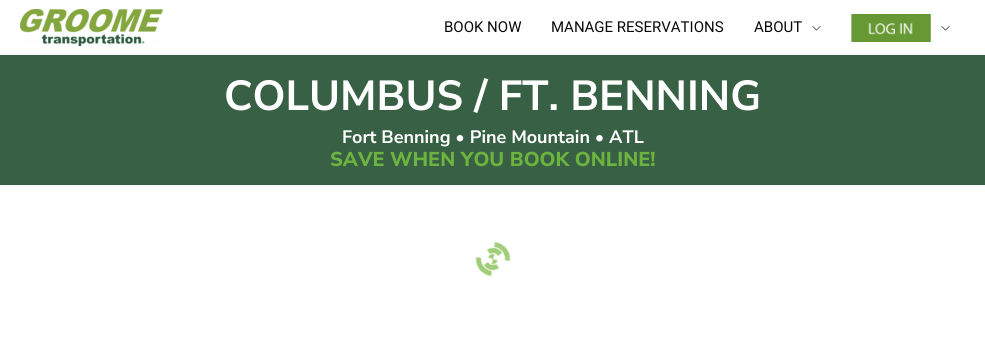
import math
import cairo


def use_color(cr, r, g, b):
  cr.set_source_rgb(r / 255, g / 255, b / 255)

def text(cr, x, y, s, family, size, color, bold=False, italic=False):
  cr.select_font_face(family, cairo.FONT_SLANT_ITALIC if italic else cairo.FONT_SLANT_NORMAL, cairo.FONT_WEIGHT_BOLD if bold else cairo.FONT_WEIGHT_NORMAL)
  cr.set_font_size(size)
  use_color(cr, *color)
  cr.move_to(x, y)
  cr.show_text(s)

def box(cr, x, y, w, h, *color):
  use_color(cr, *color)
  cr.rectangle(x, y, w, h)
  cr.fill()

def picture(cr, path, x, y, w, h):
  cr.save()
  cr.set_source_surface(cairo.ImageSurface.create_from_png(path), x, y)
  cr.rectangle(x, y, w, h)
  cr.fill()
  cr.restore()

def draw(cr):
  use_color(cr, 55, 96, 68)
  cr.paint()
  box(cr, 0, 0, 985, 55, 255, 255, 255)
  picture(cr, "img_01.png", 20, 9, 143, 37)
  picture(cr, "img_02.png", 812, 26, 9, 5)
  picture(cr, "img_03.png", 851, 14, 80, 28)
  picture(cr, "img_02.png", 941, 26, 9, 5)
  box(cr, 0, 185, 985, 167, 255, 255, 255)
  picture(cr, "img_04.png", 475, 241, 36, 36)
  text(cr, 444, 32, "BOOK NOW", "Roboto", 15, (10, 10, 10))
  text(cr, 551, 32, "MANAGE RESERVATIONS", "Roboto", 15, (10, 10, 10))
  text(cr, 754, 32, "ABOUT", "Roboto", 15, (10, 10, 10))
  text(cr, 224, 110, "COLUMBUS / FT. BENNING", "Nunito Sans", 42, (255, 255, 255), bold=True)
  text(cr, 342, 143, "Fort Benning • Pine Mountain • ATL", "Nunito Sans", 18, (255, 255, 255), bold=True)
  text(cr, 330, 166, "SAVE WHEN YOU BOOK ONLINE!", "Nunito Sans ExtraBold", 20, (109, 179, 63))


surface = cairo.ImageSurface(cairo.FORMAT_RGB24, 985, 352)
cr = cairo.Context(surface)
options = cairo.FontOptions()
options.set_hint_metrics(cairo.HINT_METRICS_OFF)
options.set_hint_style(cairo.HINT_STYLE_NONE)
cr.set_font_options(options)
cr.set_miter_limit(4)
draw(cr)
surface.write_to_png("out.png")
